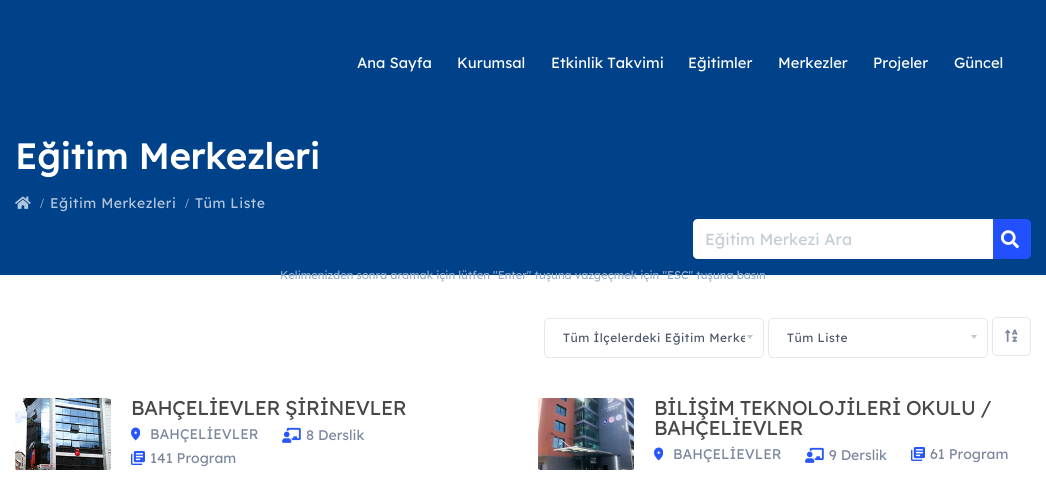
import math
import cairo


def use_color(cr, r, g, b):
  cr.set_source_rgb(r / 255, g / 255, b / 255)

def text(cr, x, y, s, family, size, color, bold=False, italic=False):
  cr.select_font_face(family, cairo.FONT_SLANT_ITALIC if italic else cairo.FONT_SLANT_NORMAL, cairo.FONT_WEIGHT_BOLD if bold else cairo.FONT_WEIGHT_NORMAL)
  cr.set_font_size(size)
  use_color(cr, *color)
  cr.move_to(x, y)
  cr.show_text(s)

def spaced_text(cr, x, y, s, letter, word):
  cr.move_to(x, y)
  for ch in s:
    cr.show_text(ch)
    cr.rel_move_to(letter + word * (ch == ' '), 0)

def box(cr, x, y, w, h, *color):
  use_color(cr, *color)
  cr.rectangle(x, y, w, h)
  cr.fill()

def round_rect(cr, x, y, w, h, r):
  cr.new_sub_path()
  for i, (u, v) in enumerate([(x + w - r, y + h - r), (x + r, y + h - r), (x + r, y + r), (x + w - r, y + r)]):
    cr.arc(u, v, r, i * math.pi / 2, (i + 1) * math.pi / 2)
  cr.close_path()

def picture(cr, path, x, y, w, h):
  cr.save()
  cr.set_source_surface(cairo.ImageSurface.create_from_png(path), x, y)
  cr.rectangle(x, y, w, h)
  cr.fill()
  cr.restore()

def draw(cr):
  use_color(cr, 255, 255, 255)
  cr.paint()
  box(cr, 0, 0, 1046, 275, 0, 66, 137)
  picture(cr, "img_01.png", 15, 196, 16, 13)
  use_color(cr, 34, 80, 252)
  cr.new_path()
  cr.move_to(989.5, 219.5)
  cr.line_to(1026, 219.5)
  cr.curve_to(1028.5, 219.5, 1030.5, 221.5, 1030.5, 224)
  cr.line_to(1030.5, 254)
  cr.curve_to(1030.5, 256.5, 1028.5, 258.5, 1026, 258.5)
  cr.line_to(989.5, 258.5)
  cr.close_path()
  cr.fill_preserve()
  cr.set_line_width(1)
  cr.stroke()
  use_color(cr, 255, 255, 255)
  cr.new_path()
  cr.move_to(698, 219)
  cr.line_to(993, 219)
  cr.line_to(993, 259)
  cr.line_to(698, 259)
  cr.curve_to(695, 259, 693, 257, 693, 254)
  cr.line_to(693, 224)
  cr.curve_to(693, 221, 695, 219, 698, 219)
  cr.close_path()
  cr.fill()
  picture(cr, "img_02.png", 1001, 230, 18, 19)
  round_rect(cr, 544.5, 318.5, 219, 39, 4.5)
  use_color(cr, 230, 232, 235)
  cr.stroke()
  use_color(cr, 192, 200, 201)
  cr.new_path()
  cr.move_to(747, 335)
  cr.line_to(753, 335)
  cr.line_to(750, 339)
  cr.close_path()
  cr.fill()
  round_rect(cr, 768.5, 318.5, 219, 39, 4.5)
  use_color(cr, 230, 232, 235)
  cr.stroke()
  use_color(cr, 192, 200, 201)
  cr.new_path()
  cr.move_to(971, 335)
  cr.line_to(977, 335)
  cr.line_to(974, 339)
  cr.close_path()
  cr.fill()
  round_rect(cr, 992.5, 317.5, 38, 38, 4.5)
  use_color(cr, 230, 232, 235)
  cr.stroke()
  picture(cr, "img_03.png", 1005, 329, 13, 13)
  picture(cr, "img_04.png", 15, 398, 96, 72)
  picture(cr, "img_05.png", 131, 427, 9, 14)
  picture(cr, "img_06.png", 282, 427, 19, 16)
  picture(cr, "img_07.png", 131, 451, 14, 14)
  picture(cr, "img_08.png", 538, 398, 96, 72)
  picture(cr, "img_05.png", 654, 447, 9, 14)
  picture(cr, "img_06.png", 805, 447, 19, 16)
  picture(cr, "img_07.png", 911, 447, 14, 14)
  cr.select_font_face("Lexend", cairo.FONT_SLANT_NORMAL, cairo.FONT_WEIGHT_BOLD)
  cr.set_font_size(35.25)
  use_color(cr, 255, 255, 255)
  spaced_text(cr, 15, 169, "Eğitim Merkezleri", 0.5, 0)
  cr.select_font_face("Liberation Serif")
  cr.set_font_size(14)
  use_color(cr, 179, 198, 220)
  spaced_text(cr, 40, 208, "/", 0.5, 0)
  cr.select_font_face("Lexend")
  spaced_text(cr, 50, 208, "Eğitim Merkezleri", 0.5, 0)
  cr.select_font_face("Liberation Serif")
  spaced_text(cr, 185, 208, "/", 0.5, 0)
  cr.select_font_face("Lexend")
  spaced_text(cr, 195, 208, "Tüm Liste", 0.5, 0)
  text(cr, 357, 68, "Ana Sayfa", "Lexend", 14.75, (255, 255, 255))
  text(cr, 457, 68, "Kurumsal", "Lexend", 14.75, (255, 255, 255))
  text(cr, 551, 68, "Etkinlik Takvimi", "Lexend", 14.75, (255, 255, 255))
  text(cr, 688, 68, "Eğitimler", "Lexend", 14.75, (255, 255, 255))
  text(cr, 778, 68, "Merkezler", "Lexend", 14.75, (255, 255, 255))
  text(cr, 873, 68, "Projeler", "Lexend", 14.75, (255, 255, 255))
  text(cr, 954, 68, "Güncel", "Lexend", 14.75, (255, 255, 255))
  text(cr, 280, 279, "Kelimenizden sonra aramak için lütfen \"Enter\" tuşuna vazgeçmek için \"ESC\" tuşuna basın", "Lexend", 11.25, (149, 176, 206))
  text(cr, 705, 245, "Eğitim Merkezi Ara", "Lexend", 16, (195, 205, 211))
  cr.save()
  cr.rectangle(563, 331, 182, 14)
  cr.clip()
  cr.set_font_size(12)
  use_color(cr, 76, 86, 103)
  spaced_text(cr, 563, 342, "Tüm İlçelerdeki Eğitim Merke", 0.5, 0)
  cr.restore()
  cr.set_font_size(12)
  use_color(cr, 76, 86, 103)
  spaced_text(cr, 787, 342, "Tüm Liste", 0.5, 0)
  cr.set_font_size(20)
  use_color(cr, 72, 72, 72)
  spaced_text(cr, 131, 415, "BAHÇELİEVLER ŞİRİNEVLER", -0.5, 0)
  text(cr, 150, 439, "BAHÇELİEVLER", "Lexend", 14, (124, 135, 158))
  text(cr, 306, 440, "8 Derslik", "Lexend", 14, (124, 135, 158))
  text(cr, 150, 463, "141 Program", "Lexend", 14, (124, 135, 158))
  cr.set_font_size(20)
  use_color(cr, 72, 72, 72)
  spaced_text(cr, 654, 415, "BİLİŞİM TEKNOLOJİLERİ OKULU /", -0.5, 0)
  spaced_text(cr, 654, 435, "BAHÇELİEVLER", -0.5, 0)
  text(cr, 673, 459, "BAHÇELİEVLER", "Lexend", 14, (124, 135, 158))
  text(cr, 829, 460, "9 Derslik", "Lexend", 14, (124, 135, 158))
  text(cr, 930, 459, "61 Program", "Lexend", 14, (124, 135, 158))


surface = cairo.ImageSurface(cairo.FORMAT_RGB24, 1046, 492)
cr = cairo.Context(surface)
options = cairo.FontOptions()
options.set_hint_metrics(cairo.HINT_METRICS_OFF)
options.set_hint_style(cairo.HINT_STYLE_NONE)
cr.set_font_options(options)
cr.set_miter_limit(4)
draw(cr)
surface.write_to_png("out.png")
